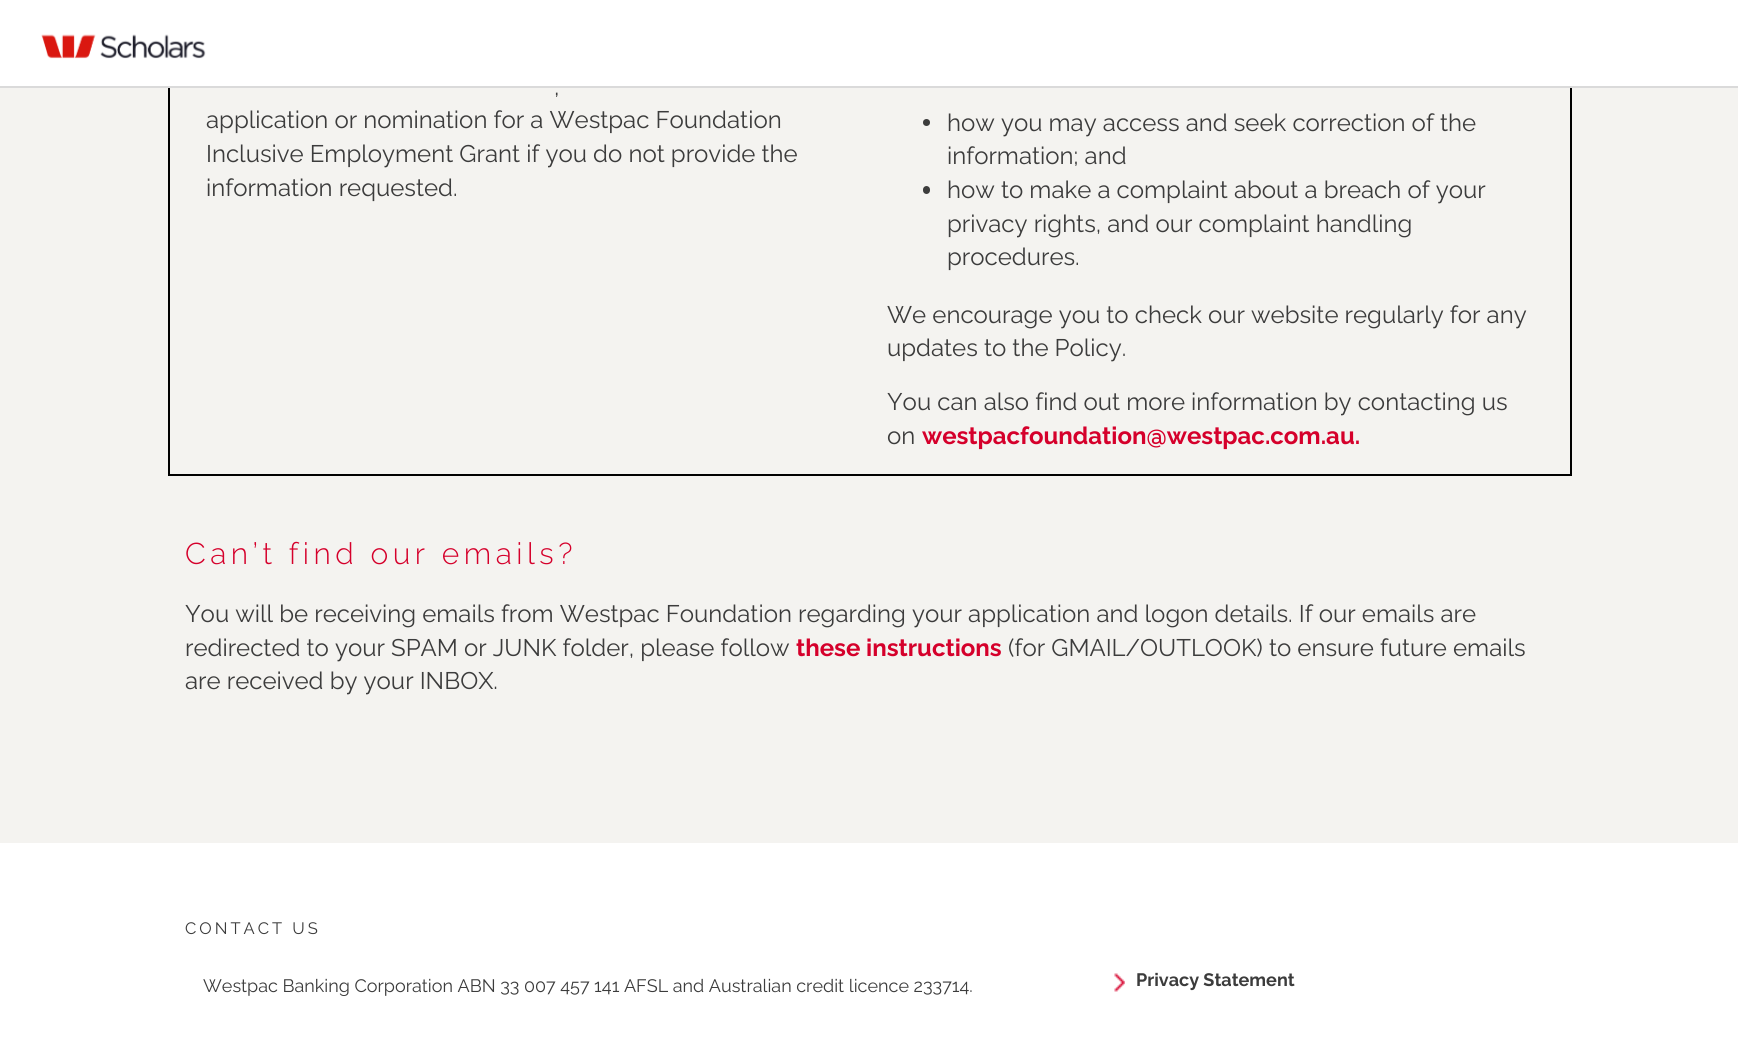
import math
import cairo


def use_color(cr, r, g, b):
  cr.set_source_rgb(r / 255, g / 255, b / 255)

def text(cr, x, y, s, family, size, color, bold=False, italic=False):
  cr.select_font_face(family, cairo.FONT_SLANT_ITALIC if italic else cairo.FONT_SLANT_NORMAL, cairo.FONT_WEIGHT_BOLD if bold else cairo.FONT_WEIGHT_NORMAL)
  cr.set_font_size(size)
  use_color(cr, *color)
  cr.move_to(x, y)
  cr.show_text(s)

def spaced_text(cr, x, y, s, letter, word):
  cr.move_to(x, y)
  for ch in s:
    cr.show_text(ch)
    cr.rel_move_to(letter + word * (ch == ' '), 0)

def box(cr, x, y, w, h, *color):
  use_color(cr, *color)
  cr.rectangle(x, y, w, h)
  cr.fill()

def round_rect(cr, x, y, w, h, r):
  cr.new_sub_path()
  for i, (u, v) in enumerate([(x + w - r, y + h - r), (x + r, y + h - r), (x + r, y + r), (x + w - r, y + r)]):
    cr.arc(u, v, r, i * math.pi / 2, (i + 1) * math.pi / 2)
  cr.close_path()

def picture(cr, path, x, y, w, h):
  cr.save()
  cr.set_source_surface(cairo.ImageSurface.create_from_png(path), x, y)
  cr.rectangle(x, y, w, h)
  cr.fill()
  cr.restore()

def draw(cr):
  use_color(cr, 244, 243, 240)
  cr.paint()
  cr.rectangle(169, -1, 1402, 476)
  use_color(cr, 0, 0, 0)
  cr.stroke()
  box(cr, 0, 0, 1738, 86, 255, 255, 255)
  box(cr, 0, 86, 1738, 2, 218, 218, 218)
  picture(cr, "img_01.png", 41, 34, 165, 25)
  use_color(cr, 60, 60, 60)
  cr.arc(926.5, 122.5, 3.5, 0, 2 * math.pi)
  cr.fill()
  round_rect(cr, 923, 186, 7, 8, 3.5)
  cr.fill()
  box(cr, 0, 843, 1738, 199, 255, 255, 255)
  picture(cr, "img_02.png", 1114, 973, 11, 19)
  text(cr, 554, 95, ",", "Raleway", 24, (60, 60, 60))
  text(cr, 206, 128, "application or nomination for a Westpac Foundation", "Raleway", 24, (60, 60, 60))
  text(cr, 206, 162, "Inclusive Employment Grant if you do not provide the", "Raleway", 24, (60, 60, 60))
  text(cr, 206, 196, "information requested.", "Raleway", 24, (60, 60, 60))
  text(cr, 947, 131, "how you may access and seek correction of the", "Raleway", 24, (60, 60, 60))
  text(cr, 947, 164, "information; and", "Raleway", 24, (60, 60, 60))
  text(cr, 947, 198, "how to make a complaint about a breach of your", "Raleway", 24, (60, 60, 60))
  text(cr, 947, 232, "privacy rights, and our complaint handling", "Raleway", 24, (60, 60, 60))
  text(cr, 947, 265, "procedures.", "Raleway", 24, (60, 60, 60))
  text(cr, 887, 323, "We encourage you to check our website regularly for any", "Raleway", 24, (60, 60, 60))
  text(cr, 887, 356, "updates to the Policy.", "Raleway", 24, (60, 60, 60))
  text(cr, 887, 410, "You can also find out more information by contacting us", "Raleway", 24, (60, 60, 60))
  text(cr, 887, 444, "on", "Raleway", 24, (60, 60, 60))
  text(cr, 922, 444, "westpacfoundation@westpac.com.au.", "Raleway", 24, (213, 0, 43), bold=True)
  cr.select_font_face("Raleway Light")
  cr.set_font_size(30)
  spaced_text(cr, 185, 564, "Can’t find our emails?", 4.5, 0)
  text(cr, 185, 622, "You will be receiving emails from Westpac Foundation regarding your application and logon details. If our emails are", "Raleway", 24, (60, 60, 60))
  text(cr, 185, 656, "redirected to your SPAM or JUNK folder, please follow", "Raleway", 24, (60, 60, 60))
  text(cr, 796, 656, "these instructions", "Raleway", 24, (213, 0, 43), bold=True)
  text(cr, 1008, 656, "(for GMAIL/OUTLOOK) to ensure future emails", "Raleway", 24, (60, 60, 60))
  text(cr, 185, 689, "are received by your INBOX.", "Raleway", 24, (60, 60, 60))
  cr.set_font_size(16.5)
  spaced_text(cr, 185, 934, "CONTACT US", 3, 0)
  text(cr, 203, 992, "Westpac Banking Corporation ABN 33 007 457 141 AFSL and Australian credit licence 233714.", "Raleway", 18, (60, 60, 60))
  text(cr, 1136, 986, "Privacy Statement", "Raleway", 18, (60, 60, 60), bold=True)


surface = cairo.ImageSurface(cairo.FORMAT_RGB24, 1738, 1042)
cr = cairo.Context(surface)
options = cairo.FontOptions()
options.set_hint_metrics(cairo.HINT_METRICS_OFF)
options.set_hint_style(cairo.HINT_STYLE_NONE)
cr.set_font_options(options)
cr.set_miter_limit(4)
draw(cr)
surface.write_to_png("out.png")
